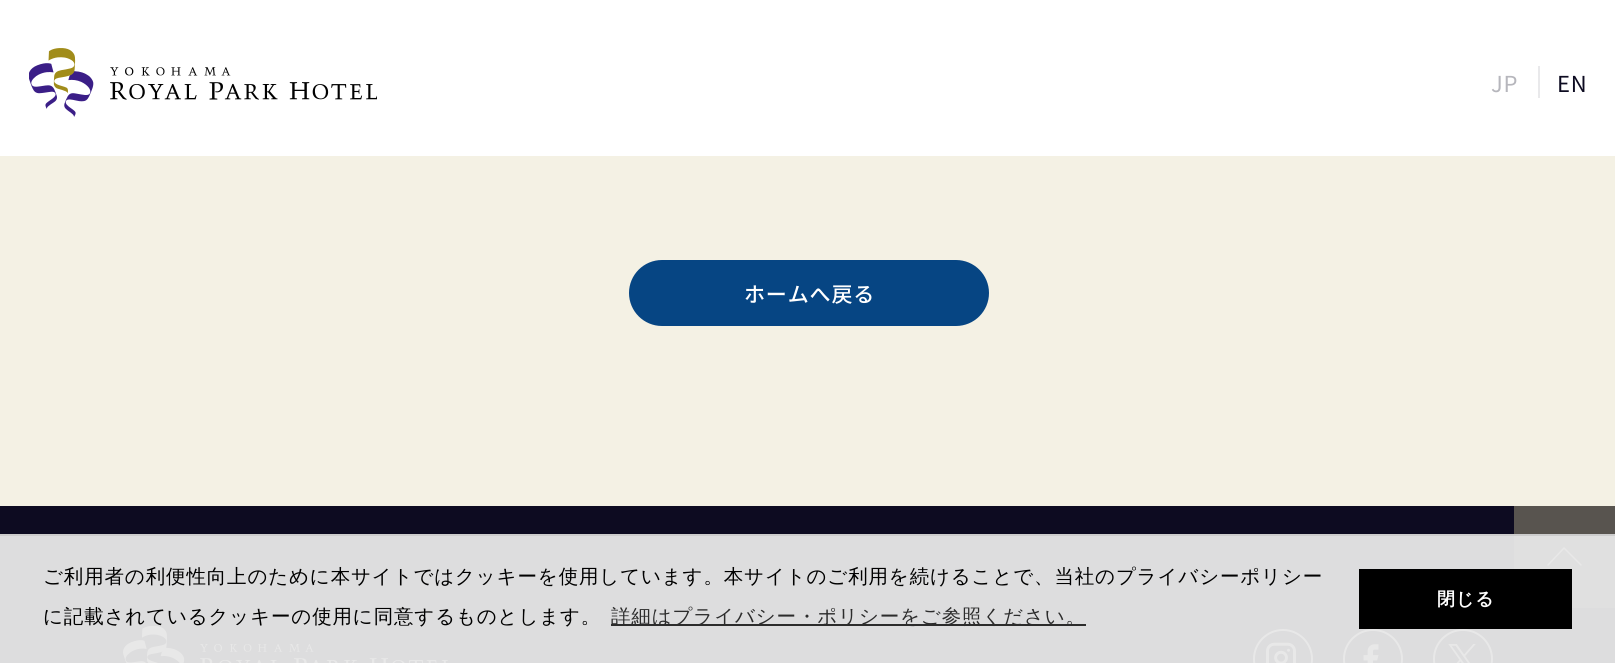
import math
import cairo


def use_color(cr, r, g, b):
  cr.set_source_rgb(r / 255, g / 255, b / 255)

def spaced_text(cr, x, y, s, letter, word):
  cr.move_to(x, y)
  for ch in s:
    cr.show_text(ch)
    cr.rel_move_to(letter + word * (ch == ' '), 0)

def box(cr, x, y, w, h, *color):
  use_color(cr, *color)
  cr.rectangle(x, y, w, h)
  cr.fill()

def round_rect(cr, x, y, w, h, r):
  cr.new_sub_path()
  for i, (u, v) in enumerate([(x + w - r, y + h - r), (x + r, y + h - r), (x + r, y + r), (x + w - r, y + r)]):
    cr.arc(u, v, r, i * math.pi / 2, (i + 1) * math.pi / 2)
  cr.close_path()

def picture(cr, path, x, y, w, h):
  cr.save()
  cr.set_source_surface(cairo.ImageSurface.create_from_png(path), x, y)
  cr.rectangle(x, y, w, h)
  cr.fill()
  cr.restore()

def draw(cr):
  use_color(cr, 244, 241, 228)
  cr.paint()
  box(cr, 0, 0, 1615, 156, 255, 255, 255)
  picture(cr, "img_01.png", 29, 48, 348, 69)
  box(cr, 1538, 66, 2, 32, 233, 233, 235)
  use_color(cr, 6, 69, 131)
  round_rect(cr, 630, 261, 358, 64, 32)
  cr.fill_preserve()
  cr.stroke()
  box(cr, 0, 506, 1615, 157, 13, 11, 33)
  picture(cr, "img_02.png", 123, 626, 325, 37)
  cr.arc(1283, 659, 29, 0, 2 * math.pi)
  use_color(cr, 255, 255, 255)
  cr.stroke()
  picture(cr, "img_03.png", 1266, 642, 30, 21)
  cr.arc(1373, 659, 29, 0, 2 * math.pi)
  cr.stroke()
  picture(cr, "img_04.png", 1363, 644, 16, 19)
  cr.arc(1463, 659, 29, 0, 2 * math.pi)
  cr.stroke()
  picture(cr, "img_05.png", 1448, 643, 28, 20)
  use_color(cr, 88, 84, 79)
  cr.new_path()
  cr.move_to(1514, 506)
  cr.line_to(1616, 506)
  cr.line_to(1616, 608)
  cr.line_to(1520, 608)
  cr.curve_to(1516, 608, 1514, 605, 1514, 602)
  cr.close_path()
  cr.fill()
  cr.new_path()
  cr.move_to(1564, 548)
  cr.line_to(1548, 565)
  cr.move_to(1564, 548)
  cr.line_to(1581, 565)
  use_color(cr, 255, 255, 255)
  cr.set_line_width(1.5)
  cr.set_line_cap(cairo.LINE_CAP_ROUND)
  cr.stroke()
  cr.set_source_rgba(0.906, 0.906, 0.906, 0.95)
  cr.rectangle(0, 536, 1615, 127)
  cr.fill()
  box(cr, 0, 534, 1615, 2, 204, 204, 204)
  box(cr, 611, 624, 475, 2, 44, 44, 44)
  box(cr, 1359, 569, 213, 60, 0, 0, 0)
  cr.select_font_face("Noto Sans JP")
  cr.set_font_size(22)
  use_color(cr, 182, 182, 188)
  spaced_text(cr, 1491, 92, "JP", 0.85, 0)
  use_color(cr, 13, 11, 33)
  spaced_text(cr, 1557, 92, "EN", 0.85, 0)
  cr.select_font_face("Noto Sans JP Medium")
  cr.set_font_size(21)
  use_color(cr, 255, 255, 255)
  spaced_text(cr, 744, 302, "ホームへ戻る", 0.85, 0)
  cr.select_font_face("WenQuanYi Zen Hei Medium")
  cr.set_font_size(19.5)
  use_color(cr, 0, 0, 0)
  spaced_text(cr, 43, 583, "ご利用者の利便性向上のために本サイトではクッキーを使用しています。本サイトのご利用を続けることで、当社のプライバシーポリシー", 0.85, 0)
  spaced_text(cr, 43, 623, "に記載されているクッキーの使用に同意するものとします。", 0.85, 0)
  use_color(cr, 44, 44, 44)
  spaced_text(cr, 611, 623, "詳細はプライバシー・ポリシーをご参照ください。", 0.85, 0)
  cr.select_font_face("WenQuanYi Zen Hei", cairo.FONT_SLANT_NORMAL, cairo.FONT_WEIGHT_BOLD)
  cr.set_font_size(18)
  use_color(cr, 255, 255, 255)
  spaced_text(cr, 1437, 605, "閉じる", 0.85, 0)


surface = cairo.ImageSurface(cairo.FORMAT_RGB24, 1615, 663)
cr = cairo.Context(surface)
options = cairo.FontOptions()
options.set_hint_metrics(cairo.HINT_METRICS_OFF)
options.set_hint_style(cairo.HINT_STYLE_NONE)
cr.set_font_options(options)
cr.set_miter_limit(4)
draw(cr)
surface.write_to_png("out.png")
